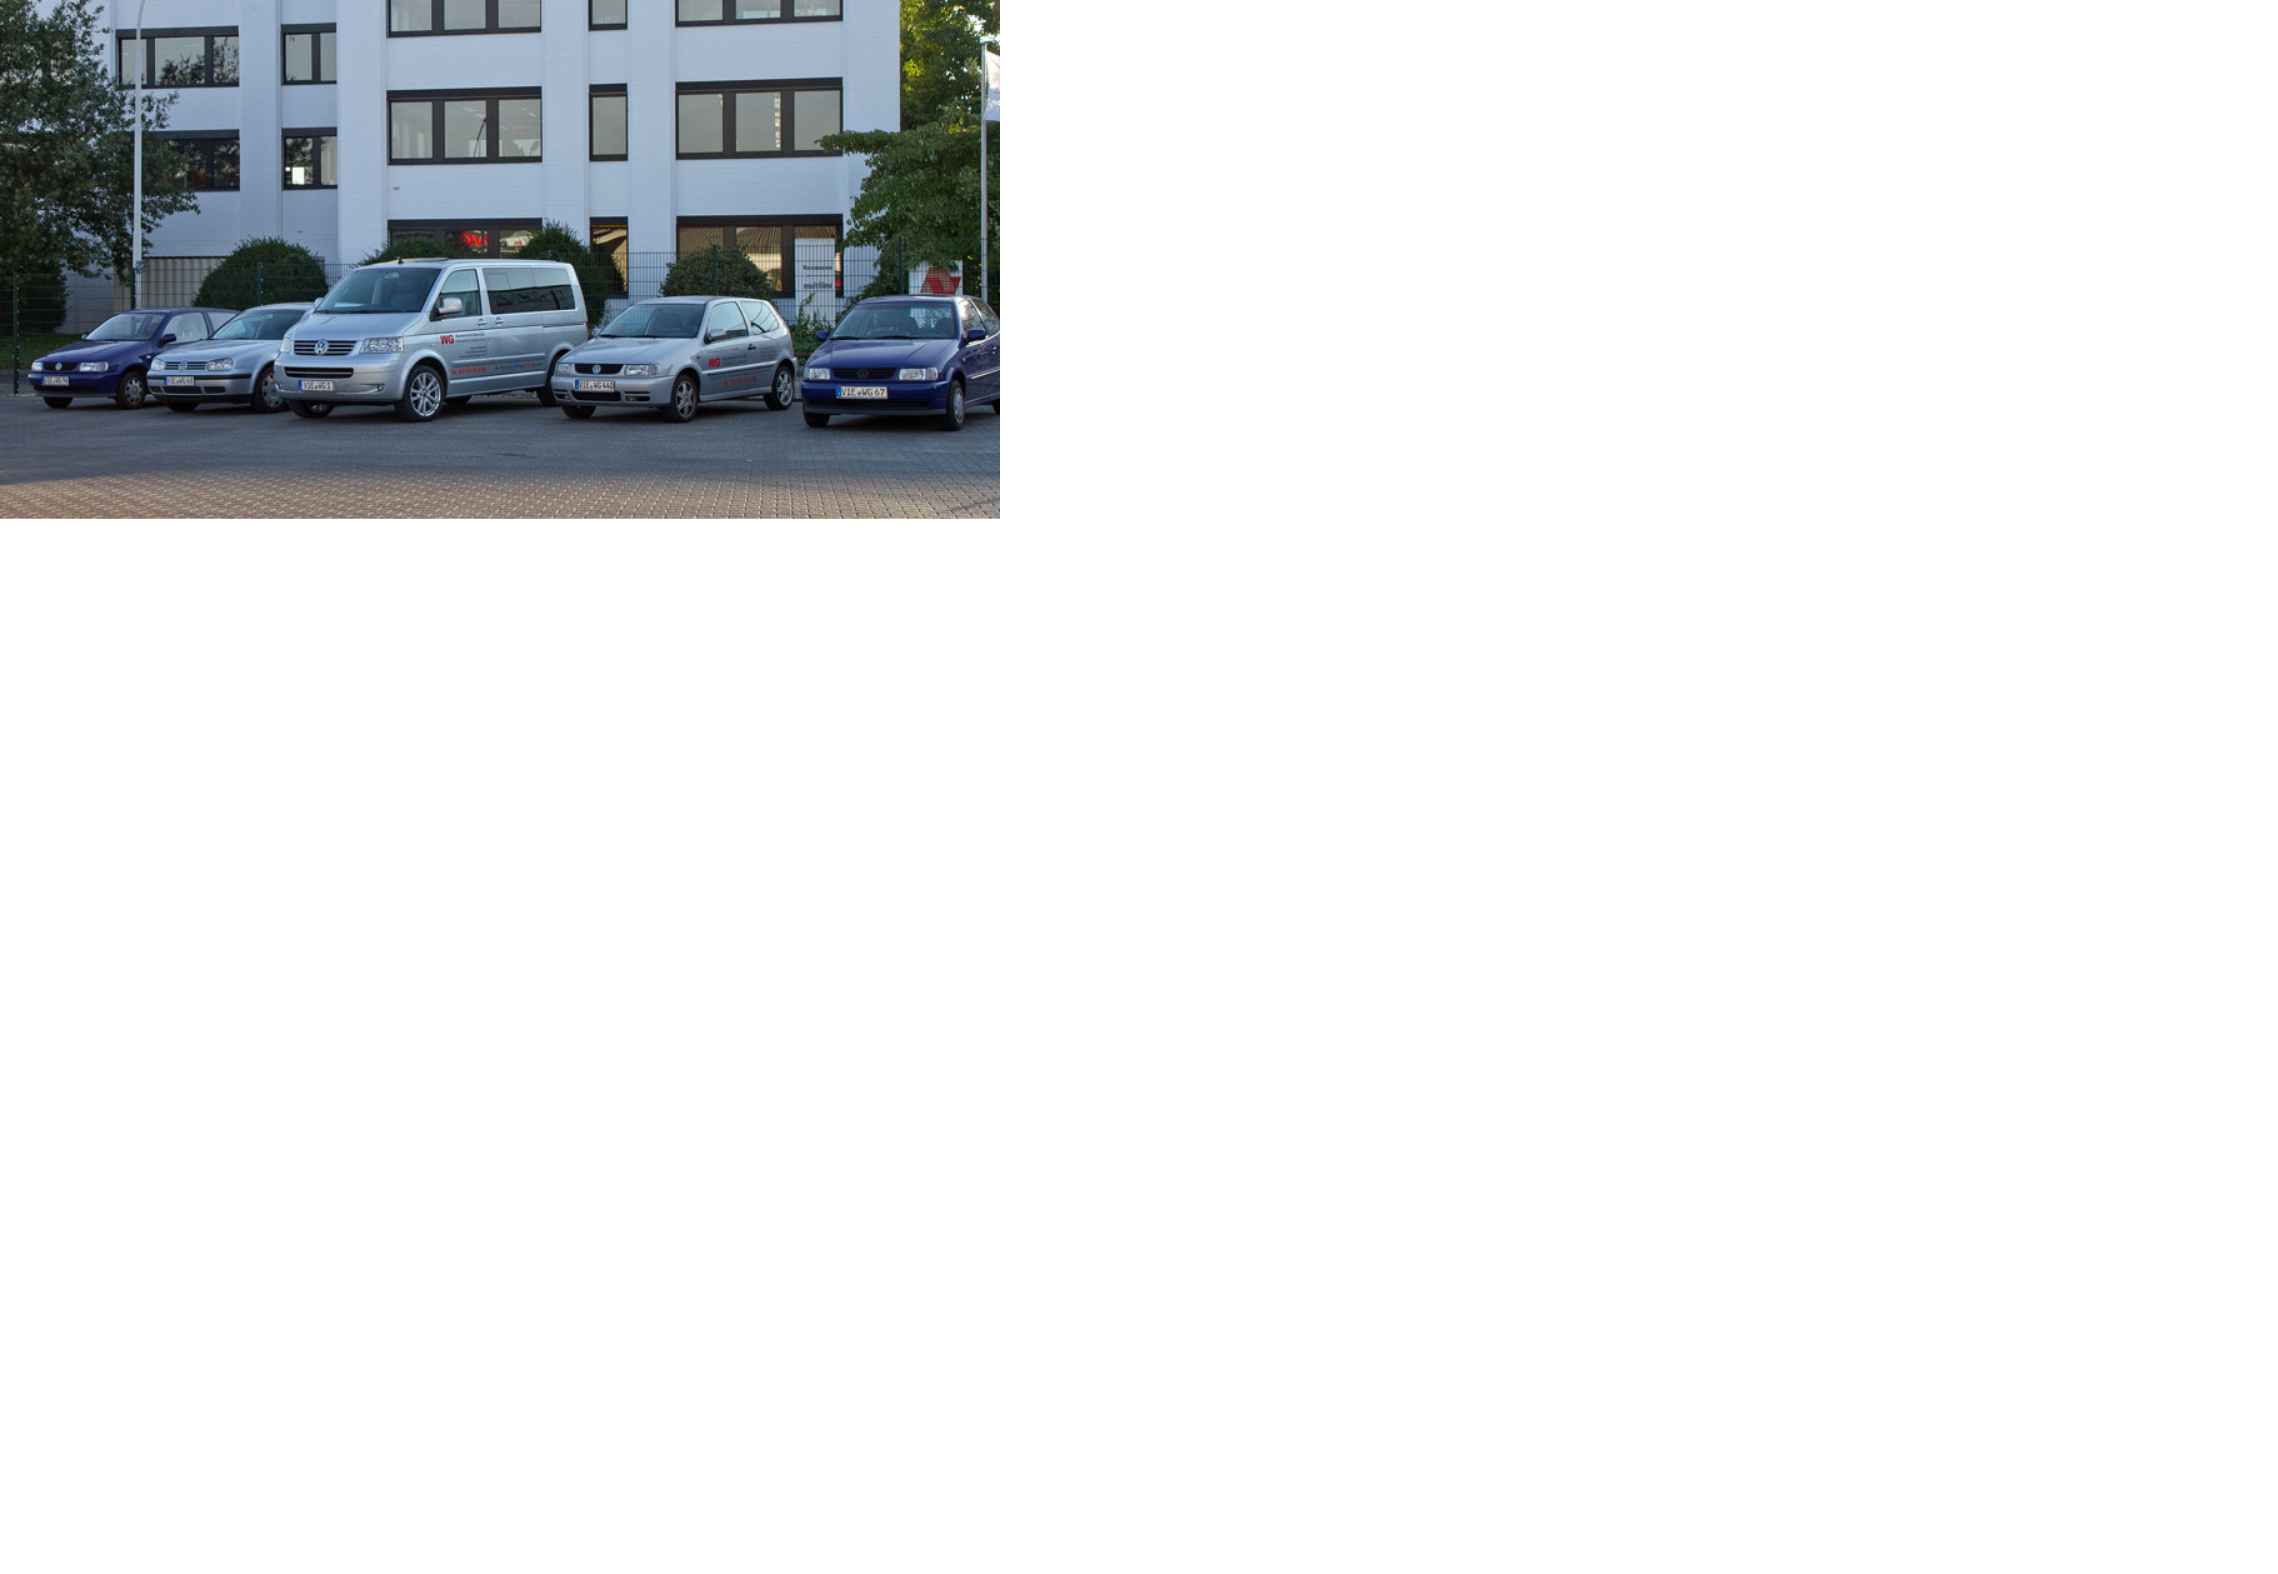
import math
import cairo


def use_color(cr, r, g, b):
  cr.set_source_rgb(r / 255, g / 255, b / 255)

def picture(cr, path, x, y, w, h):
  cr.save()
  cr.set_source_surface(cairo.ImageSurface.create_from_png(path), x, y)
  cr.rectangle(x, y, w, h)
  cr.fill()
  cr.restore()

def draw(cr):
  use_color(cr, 255, 255, 255)
  cr.paint()
  picture(cr, "img_01.png", 0, 0, 1000, 519)


surface = cairo.ImageSurface(cairo.FORMAT_RGB24, 2278, 1574)
cr = cairo.Context(surface)
options = cairo.FontOptions()
options.set_hint_metrics(cairo.HINT_METRICS_OFF)
options.set_hint_style(cairo.HINT_STYLE_NONE)
cr.set_font_options(options)
cr.set_miter_limit(4)
draw(cr)
surface.write_to_png("out.png")
